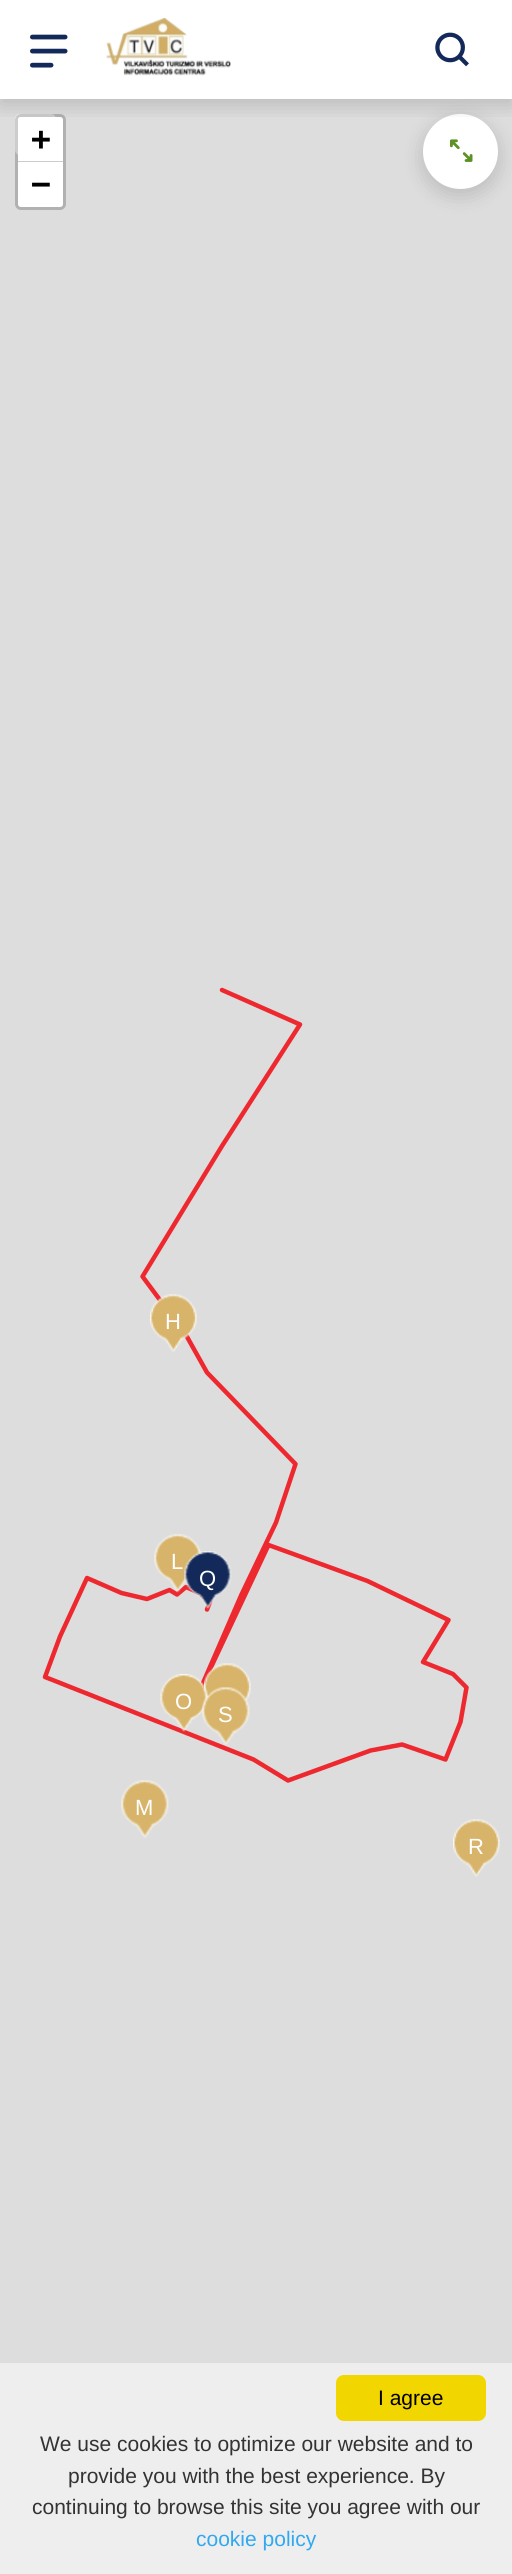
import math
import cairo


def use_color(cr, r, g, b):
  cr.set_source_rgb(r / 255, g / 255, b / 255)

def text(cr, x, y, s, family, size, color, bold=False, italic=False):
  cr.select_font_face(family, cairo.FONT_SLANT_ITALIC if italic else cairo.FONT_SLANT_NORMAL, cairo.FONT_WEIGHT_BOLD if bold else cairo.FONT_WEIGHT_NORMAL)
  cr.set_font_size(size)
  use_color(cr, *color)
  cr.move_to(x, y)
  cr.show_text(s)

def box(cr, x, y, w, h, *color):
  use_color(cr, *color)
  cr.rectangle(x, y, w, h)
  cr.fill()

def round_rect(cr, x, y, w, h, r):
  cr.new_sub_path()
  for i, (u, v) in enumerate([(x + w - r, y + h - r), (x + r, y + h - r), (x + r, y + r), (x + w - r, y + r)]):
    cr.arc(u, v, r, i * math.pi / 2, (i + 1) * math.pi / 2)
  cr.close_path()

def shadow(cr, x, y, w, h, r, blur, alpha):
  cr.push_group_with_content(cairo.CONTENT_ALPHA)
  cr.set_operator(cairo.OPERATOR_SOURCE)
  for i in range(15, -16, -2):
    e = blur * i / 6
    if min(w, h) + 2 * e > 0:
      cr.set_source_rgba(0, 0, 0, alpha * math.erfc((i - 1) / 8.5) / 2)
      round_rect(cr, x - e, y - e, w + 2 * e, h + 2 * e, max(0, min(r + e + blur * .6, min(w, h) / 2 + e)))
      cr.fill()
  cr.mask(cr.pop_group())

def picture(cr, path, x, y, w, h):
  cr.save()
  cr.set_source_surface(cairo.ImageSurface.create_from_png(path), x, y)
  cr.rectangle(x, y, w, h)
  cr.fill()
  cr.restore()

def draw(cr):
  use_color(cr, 255, 255, 255)
  cr.paint()
  box(cr, 0, 99, 512, 2264, 221, 221, 221)
  use_color(cr, 255, 255, 255)
  round_rect(cr, 15, 114, 41, 41, 5)
  cr.fill()
  use_color(cr, 0, 0, 0)
  shadow(cr, 423, 120, 75, 75, 37.5, 10.5, 0.16)
  use_color(cr, 255, 255, 255)
  cr.arc(460.5, 151.5, 37.5, 0, 2 * math.pi)
  cr.fill()
  round_rect(cr, 16.5, 115.5, 48, 93, 4.5)
  cr.set_source_rgba(0, 0, 0, 0.2)
  cr.set_line_width(3)
  cr.stroke()
  use_color(cr, 255, 255, 255)
  cr.new_path()
  cr.move_to(21, 117)
  cr.line_to(60, 117)
  cr.curve_to(61.5, 117, 63, 118.5, 63, 120)
  cr.line_to(63, 162)
  cr.line_to(18, 162)
  cr.line_to(18, 120)
  cr.curve_to(18, 118.5, 19.5, 117, 21, 117)
  cr.close_path()
  cr.fill()
  cr.save()
  cr.rectangle(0, 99, 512, 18)
  cr.clip()
  use_color(cr, 0, 0, 0)
  shadow(cr, 0, 6, 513, 99, 0, 10.5, 0.16)
  cr.restore()
  picture(cr, "img_01.png", 30, 34, 38, 34)
  picture(cr, "img_02.png", 106, 18, 125, 58)
  picture(cr, "img_03.png", 435, 32, 34, 35)
  picture(cr, "img_04.png", 450, 139, 23, 23)
  box(cr, 18, 161, 45, 1, 204, 204, 204)
  use_color(cr, 255, 255, 255)
  cr.new_path()
  cr.move_to(18, 162)
  cr.line_to(63, 162)
  cr.line_to(63, 204)
  cr.curve_to(63, 205.5, 61.5, 207, 60, 207)
  cr.line_to(21, 207)
  cr.curve_to(19.5, 207, 18, 205.5, 18, 204)
  cr.close_path()
  cr.fill()
  cr.new_path()
  cr.move_to(207, 1609.5)
  cr.line_to(210, 1602)
  cr.line_to(199.5, 1593)
  cr.line_to(186, 1587)
  cr.line_to(177, 1594.5)
  cr.line_to(169.5, 1590)
  cr.line_to(147, 1599)
  cr.line_to(121.5, 1593)
  cr.line_to(87, 1578)
  cr.line_to(60, 1636.5)
  cr.line_to(45, 1677)
  cr.line_to(253.5, 1759.5)
  cr.line_to(288, 1780.5)
  cr.line_to(370.5, 1750.5)
  cr.line_to(402, 1744.5)
  cr.line_to(445.5, 1759.5)
  cr.line_to(460.5, 1722)
  cr.line_to(466.5, 1687.5)
  cr.line_to(453, 1674)
  cr.line_to(423, 1662)
  cr.line_to(448.5, 1620)
  cr.line_to(367.5, 1581)
  cr.line_to(268.5, 1545)
  cr.line_to(196.5, 1698)
  cr.line_to(241.5, 1594.5)
  cr.line_to(276, 1522.5)
  cr.line_to(295.5, 1464)
  cr.line_to(207, 1372.5)
  cr.line_to(186, 1335)
  cr.line_to(142.5, 1276.5)
  cr.line_to(222, 1146)
  cr.line_to(300, 1024.5)
  cr.line_to(222, 990)
  use_color(cr, 237, 41, 47)
  cr.set_line_width(4.5)
  cr.set_line_cap(cairo.LINE_CAP_ROUND)
  cr.set_line_join(cairo.LINE_JOIN_ROUND)
  cr.stroke()
  picture(cr, "img_05.png", 150, 1294, 47, 58)
  picture(cr, "img_06.png", 154, 1534, 48, 59)
  picture(cr, "img_07.png", 184, 1551, 48, 58)
  picture(cr, "img_09.png", 204, 1663, 47, 40)
  picture(cr, "img_08.png", 160, 1674, 48, 58)
  picture(cr, "img_10.png", 202, 1687, 48, 58)
  picture(cr, "img_11.png", 121, 1780, 48, 58)
  picture(cr, "img_12.png", 453, 1819, 47, 58)
  box(cr, 0, 2363, 512, 211, 238, 238, 238)
  use_color(cr, 241, 214, 0)
  round_rect(cr, 336, 2375, 150, 46, 8)
  cr.fill()
  text(cr, 31, 150, "+", "DejaVu Sans Mono", 33, (0, 0, 0), bold=True)
  text(cr, 31, 195, "−", "DejaVu Sans Mono", 33, (0, 0, 0), bold=True)
  text(cr, 165, 1329, "H", "Liberation Sans", 22, (255, 255, 255))
  text(cr, 171, 1569, "L", "Liberation Sans", 22, (255, 255, 255))
  text(cr, 199, 1586, "Q", "Liberation Sans", 22, (255, 255, 255))
  text(cr, 175, 1709, "O", "Liberation Sans", 22, (255, 255, 255))
  text(cr, 218, 1722, "S", "Liberation Sans", 22, (255, 255, 255))
  text(cr, 135, 1815, "M", "Liberation Sans", 22, (255, 255, 255))
  text(cr, 468, 1854, "R", "Liberation Sans", 22, (255, 255, 255))
  text(cr, 378, 2405, "I agree", "Liberation Sans", 21, (0, 0, 0))
  text(cr, 40, 2451, "We use cookies to optimize our website and to", "Liberation Sans", 21, (51, 51, 51))
  text(cr, 68, 2483, "provide you with the best experience. By", "Liberation Sans", 21, (51, 51, 51))
  text(cr, 32, 2514, "continuing to browse this site you agree with our", "Liberation Sans", 21, (51, 51, 51))
  text(cr, 196, 2546, "cookie policy", "Liberation Sans", 21, (49, 168, 240))


surface = cairo.ImageSurface(cairo.FORMAT_RGB24, 512, 2574)
cr = cairo.Context(surface)
options = cairo.FontOptions()
options.set_hint_metrics(cairo.HINT_METRICS_OFF)
options.set_hint_style(cairo.HINT_STYLE_NONE)
cr.set_font_options(options)
cr.set_miter_limit(4)
draw(cr)
surface.write_to_png("out.png")
